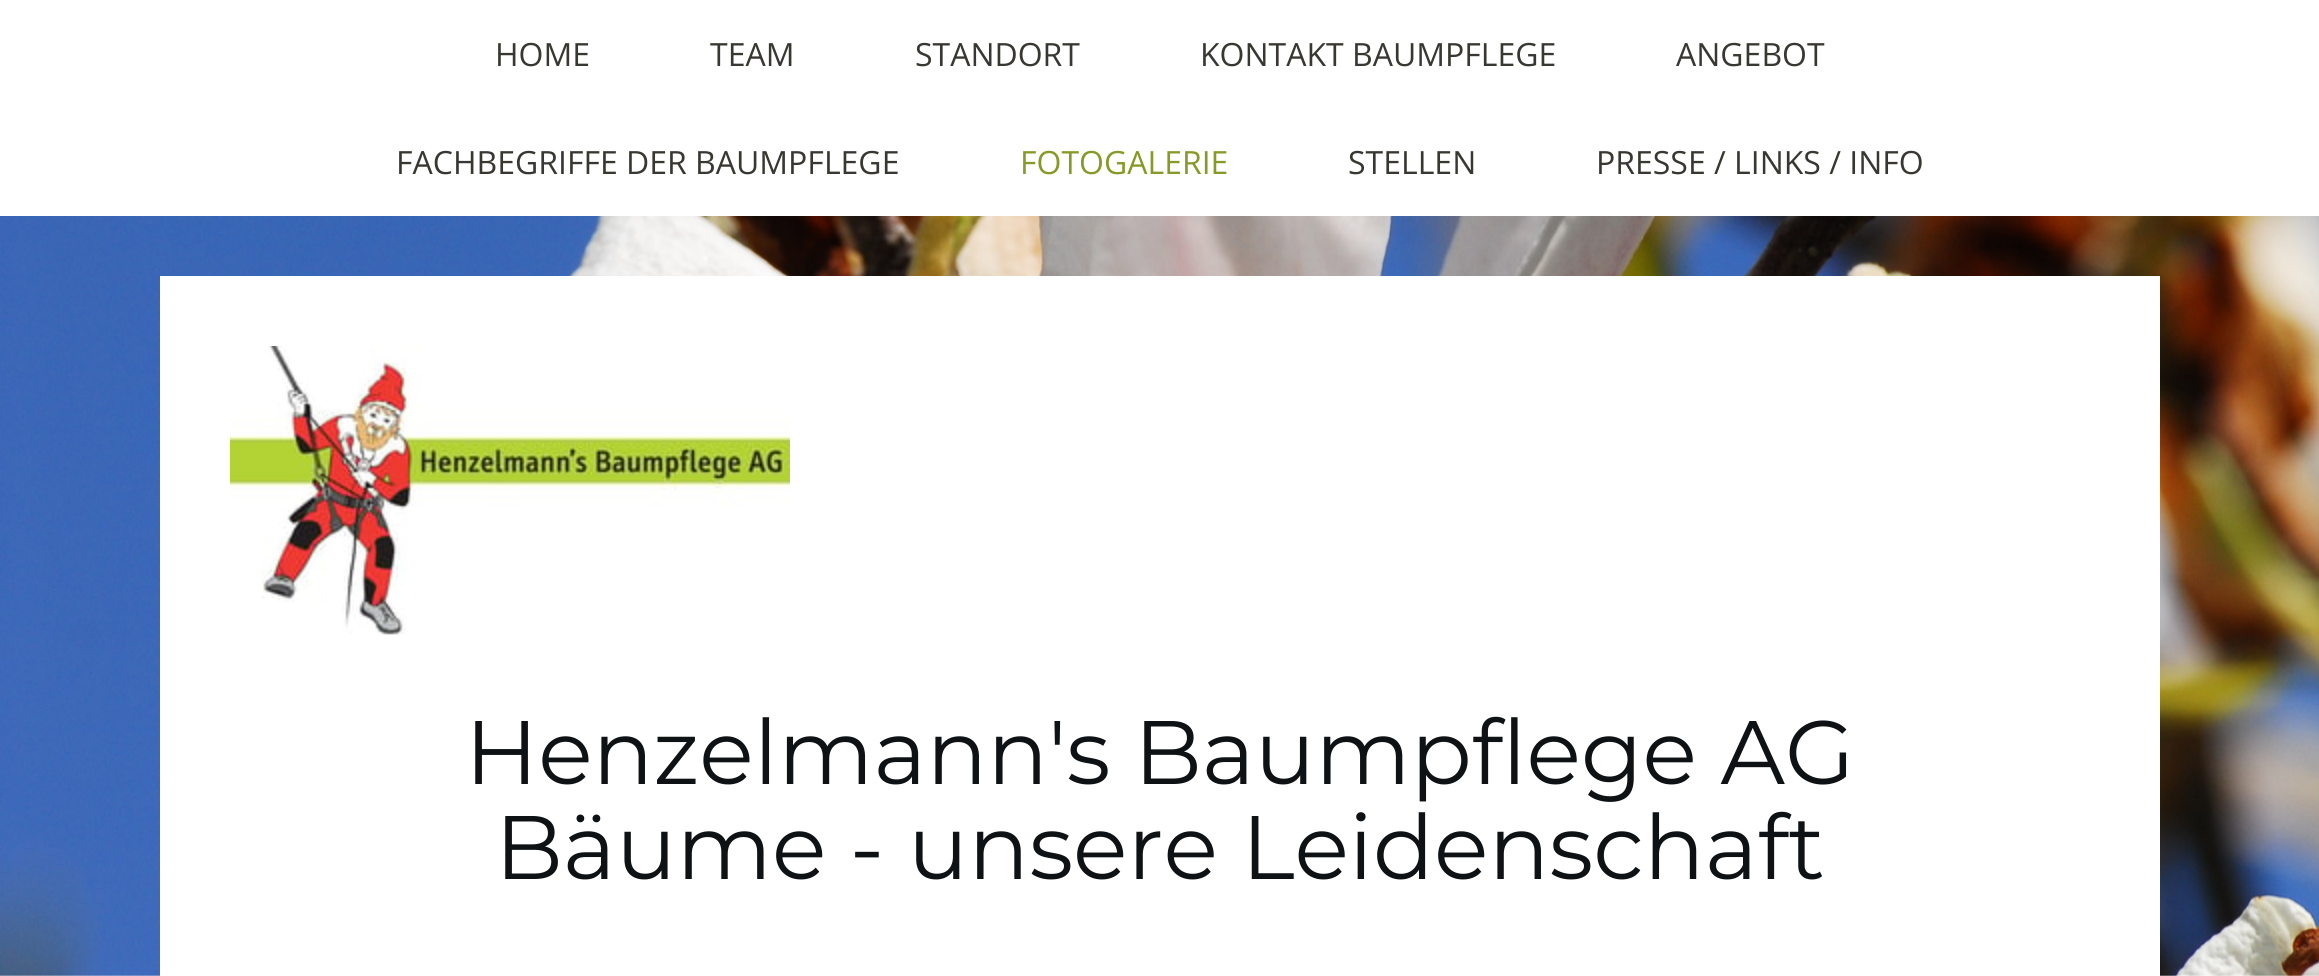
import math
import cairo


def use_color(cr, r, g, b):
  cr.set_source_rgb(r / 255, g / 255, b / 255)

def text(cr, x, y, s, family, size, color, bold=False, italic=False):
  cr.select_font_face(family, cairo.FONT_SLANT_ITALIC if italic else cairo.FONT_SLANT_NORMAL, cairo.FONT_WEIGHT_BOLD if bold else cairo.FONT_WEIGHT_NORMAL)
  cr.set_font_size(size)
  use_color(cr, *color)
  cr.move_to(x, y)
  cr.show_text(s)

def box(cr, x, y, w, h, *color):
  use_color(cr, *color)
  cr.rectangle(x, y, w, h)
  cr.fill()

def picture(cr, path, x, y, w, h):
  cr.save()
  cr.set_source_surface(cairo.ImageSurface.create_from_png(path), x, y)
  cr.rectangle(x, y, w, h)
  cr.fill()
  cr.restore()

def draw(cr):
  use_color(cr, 255, 255, 255)
  cr.paint()
  picture(cr, "img_01.png", 0, 216, 2319, 760)
  box(cr, 160, 276, 2000, 700, 255, 255, 255)
  picture(cr, "img_02.png", 230, 346, 560, 289)
  text(cr, 495, 66, "HOME", "Open Sans", 32, (57, 55, 49))
  text(cr, 710, 66, "TEAM", "Open Sans", 32, (57, 55, 49))
  text(cr, 915, 66, "STANDORT", "Open Sans", 32, (57, 55, 49))
  text(cr, 1200, 66, "KONTAKT BAUMPFLEGE", "Open Sans", 32, (57, 55, 49))
  text(cr, 1676, 66, "ANGEBOT", "Open Sans", 32, (57, 55, 49))
  text(cr, 396, 174, "FACHBEGRIFFE DER BAUMPFLEGE", "Open Sans", 32, (57, 55, 49))
  text(cr, 1020, 174, "FOTOGALERIE", "Open Sans", 32, (137, 153, 39))
  text(cr, 1348, 174, "STELLEN", "Open Sans", 32, (57, 55, 49))
  text(cr, 1596, 174, "PRESSE / LINKS / INFO", "Open Sans", 32, (57, 55, 49))
  text(cr, 465, 784, "Henzelmann's Baumpflege AG", "Montserrat", 90, (14, 18, 21))
  text(cr, 495, 879, "Bäume - unsere Leidenschaft", "Montserrat", 90, (14, 18, 21))


surface = cairo.ImageSurface(cairo.FORMAT_RGB24, 2319, 976)
cr = cairo.Context(surface)
options = cairo.FontOptions()
options.set_hint_metrics(cairo.HINT_METRICS_OFF)
options.set_hint_style(cairo.HINT_STYLE_NONE)
cr.set_font_options(options)
cr.set_miter_limit(4)
draw(cr)
surface.write_to_png("out.png")
